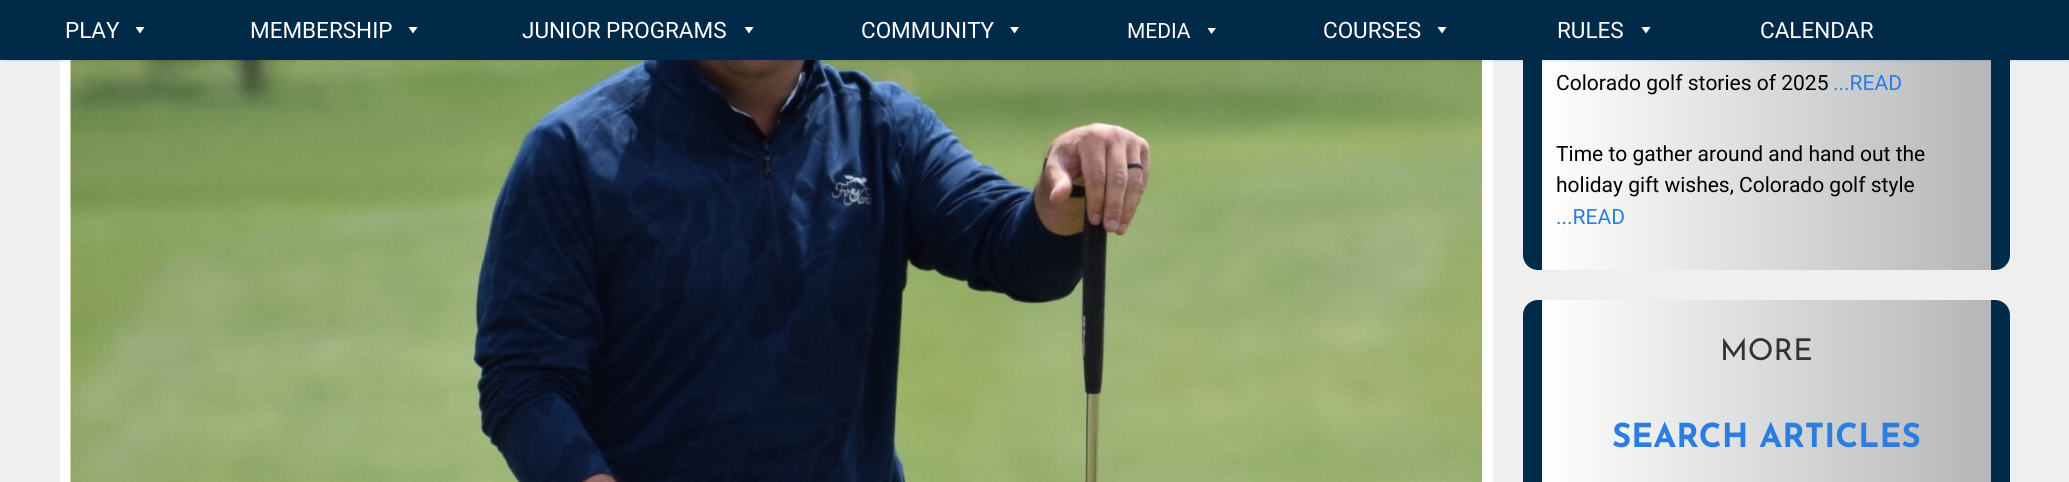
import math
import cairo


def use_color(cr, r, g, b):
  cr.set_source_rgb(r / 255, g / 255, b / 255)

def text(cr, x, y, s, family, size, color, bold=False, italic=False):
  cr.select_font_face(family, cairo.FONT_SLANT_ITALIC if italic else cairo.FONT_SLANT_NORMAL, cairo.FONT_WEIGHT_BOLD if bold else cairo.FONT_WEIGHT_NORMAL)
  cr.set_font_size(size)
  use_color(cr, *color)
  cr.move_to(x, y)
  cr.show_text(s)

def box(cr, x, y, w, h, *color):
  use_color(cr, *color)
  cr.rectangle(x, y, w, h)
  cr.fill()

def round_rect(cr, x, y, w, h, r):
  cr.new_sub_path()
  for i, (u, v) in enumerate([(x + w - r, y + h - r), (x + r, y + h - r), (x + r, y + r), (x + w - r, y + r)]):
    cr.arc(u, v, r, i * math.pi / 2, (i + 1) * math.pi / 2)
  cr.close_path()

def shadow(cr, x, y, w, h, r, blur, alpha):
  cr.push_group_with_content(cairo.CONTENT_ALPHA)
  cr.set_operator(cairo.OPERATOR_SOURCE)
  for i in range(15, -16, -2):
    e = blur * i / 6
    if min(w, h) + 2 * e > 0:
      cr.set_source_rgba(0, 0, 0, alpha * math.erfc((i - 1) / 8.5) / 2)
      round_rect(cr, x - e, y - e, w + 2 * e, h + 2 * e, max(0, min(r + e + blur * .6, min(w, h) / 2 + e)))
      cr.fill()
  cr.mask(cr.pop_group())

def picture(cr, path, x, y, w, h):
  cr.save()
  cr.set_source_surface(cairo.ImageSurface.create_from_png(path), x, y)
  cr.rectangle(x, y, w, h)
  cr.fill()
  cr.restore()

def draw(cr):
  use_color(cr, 239, 239, 239)
  cr.paint()
  box(cr, 60, 60, 1433, 422, 255, 255, 255)
  picture(cr, "img_01.png", 70, 60, 1412, 422)
  gradient = cairo.LinearGradient(2010, 26, 1523, 26)
  gradient.add_color_stop_rgba(0.04, 0, 0.169, 0.286, 1)
  gradient.add_color_stop_rgba(0.04, 0.706, 0.714, 0.722, 1)
  gradient.add_color_stop_rgba(0.96, 1, 1, 1, 1)
  gradient.add_color_stop_rgba(0.96, 0, 0.169, 0.286, 1)
  cr.set_source(gradient)
  round_rect(cr, 1523, -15, 487, 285, 15)
  cr.fill()
  use_color(cr, 0, 0, 0)
  shadow(cr, 3, 6, 2064, 54, 0, 1.5, 0.2)
  box(cr, 0, 0, 2069, 60, 0, 42, 72)
  use_color(cr, 255, 255, 255)
  cr.new_path()
  cr.move_to(144.5, 27)
  cr.line_to(140, 33.5)
  cr.line_to(135.5, 27)
  cr.close_path()
  cr.fill()
  cr.new_path()
  cr.move_to(417.5, 27)
  cr.line_to(413, 33.5)
  cr.line_to(408.5, 27)
  cr.close_path()
  cr.fill()
  cr.new_path()
  cr.move_to(753.5, 27)
  cr.line_to(749, 33.5)
  cr.line_to(744.5, 27)
  cr.close_path()
  cr.fill()
  cr.new_path()
  cr.move_to(1019, 27)
  cr.line_to(1014.5, 33.5)
  cr.line_to(1010, 27)
  cr.close_path()
  cr.fill()
  cr.new_path()
  cr.move_to(1216, 28)
  cr.line_to(1211.5, 34)
  cr.line_to(1207.5, 28)
  cr.close_path()
  cr.fill()
  cr.new_path()
  cr.move_to(1446.5, 27)
  cr.line_to(1442, 33.5)
  cr.line_to(1437.5, 27)
  cr.close_path()
  cr.fill()
  cr.new_path()
  cr.move_to(1650.5, 27)
  cr.line_to(1646, 33.5)
  cr.line_to(1641.5, 27)
  cr.close_path()
  cr.fill()
  gradient = cairo.LinearGradient(2010, 410, 1523, 410)
  gradient.add_color_stop_rgba(0.04, 0, 0.169, 0.286, 1)
  gradient.add_color_stop_rgba(0.04, 0.706, 0.714, 0.722, 1)
  gradient.add_color_stop_rgba(0.96, 1, 1, 1, 1)
  gradient.add_color_stop_rgba(0.96, 0, 0.169, 0.286, 1)
  cr.set_source(gradient)
  round_rect(cr, 1523, 300, 487, 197, 15)
  cr.fill()
  text(cr, 65, 38, "PLAY", "Roboto", 22.5, (255, 255, 255))
  text(cr, 250, 38, "MEMBERSHIP", "Roboto", 22.5, (255, 255, 255))
  text(cr, 522, 38, "JUNIOR PROGRAMS", "Roboto", 22.5, (255, 255, 255))
  text(cr, 861, 38, "COMMUNITY", "Roboto", 22.5, (255, 255, 255))
  text(cr, 1127, 38, "MEDIA", "Roboto", 21, (255, 255, 255))
  text(cr, 1323, 38, "COURSES", "Roboto", 22.5, (255, 255, 255))
  text(cr, 1557, 38, "RULES", "Roboto", 22.5, (255, 255, 255))
  text(cr, 1760, 38, "CALENDAR", "Roboto", 22.5, (255, 255, 255))
  text(cr, 1556, 90, "Colorado golf stories of 2025", "Roboto", 21, (0, 0, 0))
  text(cr, 1833, 90, "...READ", "Roboto", 21, (43, 125, 225))
  text(cr, 1556, 161, "Time to gather around and hand out the", "Roboto", 21, (0, 0, 0))
  text(cr, 1556, 192, "holiday gift wishes, Colorado golf style", "Roboto", 21, (0, 0, 0))
  text(cr, 1556, 224, "...READ", "Roboto", 21, (43, 125, 225))
  text(cr, 1720, 360, "MORE", "Josefin Sans", 30, (51, 51, 51))
  text(cr, 1612, 447, "SEARCH ARTICLES", "Josefin Sans", 33, (43, 125, 225), bold=True)


surface = cairo.ImageSurface(cairo.FORMAT_RGB24, 2069, 482)
cr = cairo.Context(surface)
options = cairo.FontOptions()
options.set_hint_metrics(cairo.HINT_METRICS_OFF)
options.set_hint_style(cairo.HINT_STYLE_NONE)
cr.set_font_options(options)
cr.set_miter_limit(4)
draw(cr)
surface.write_to_png("out.png")
